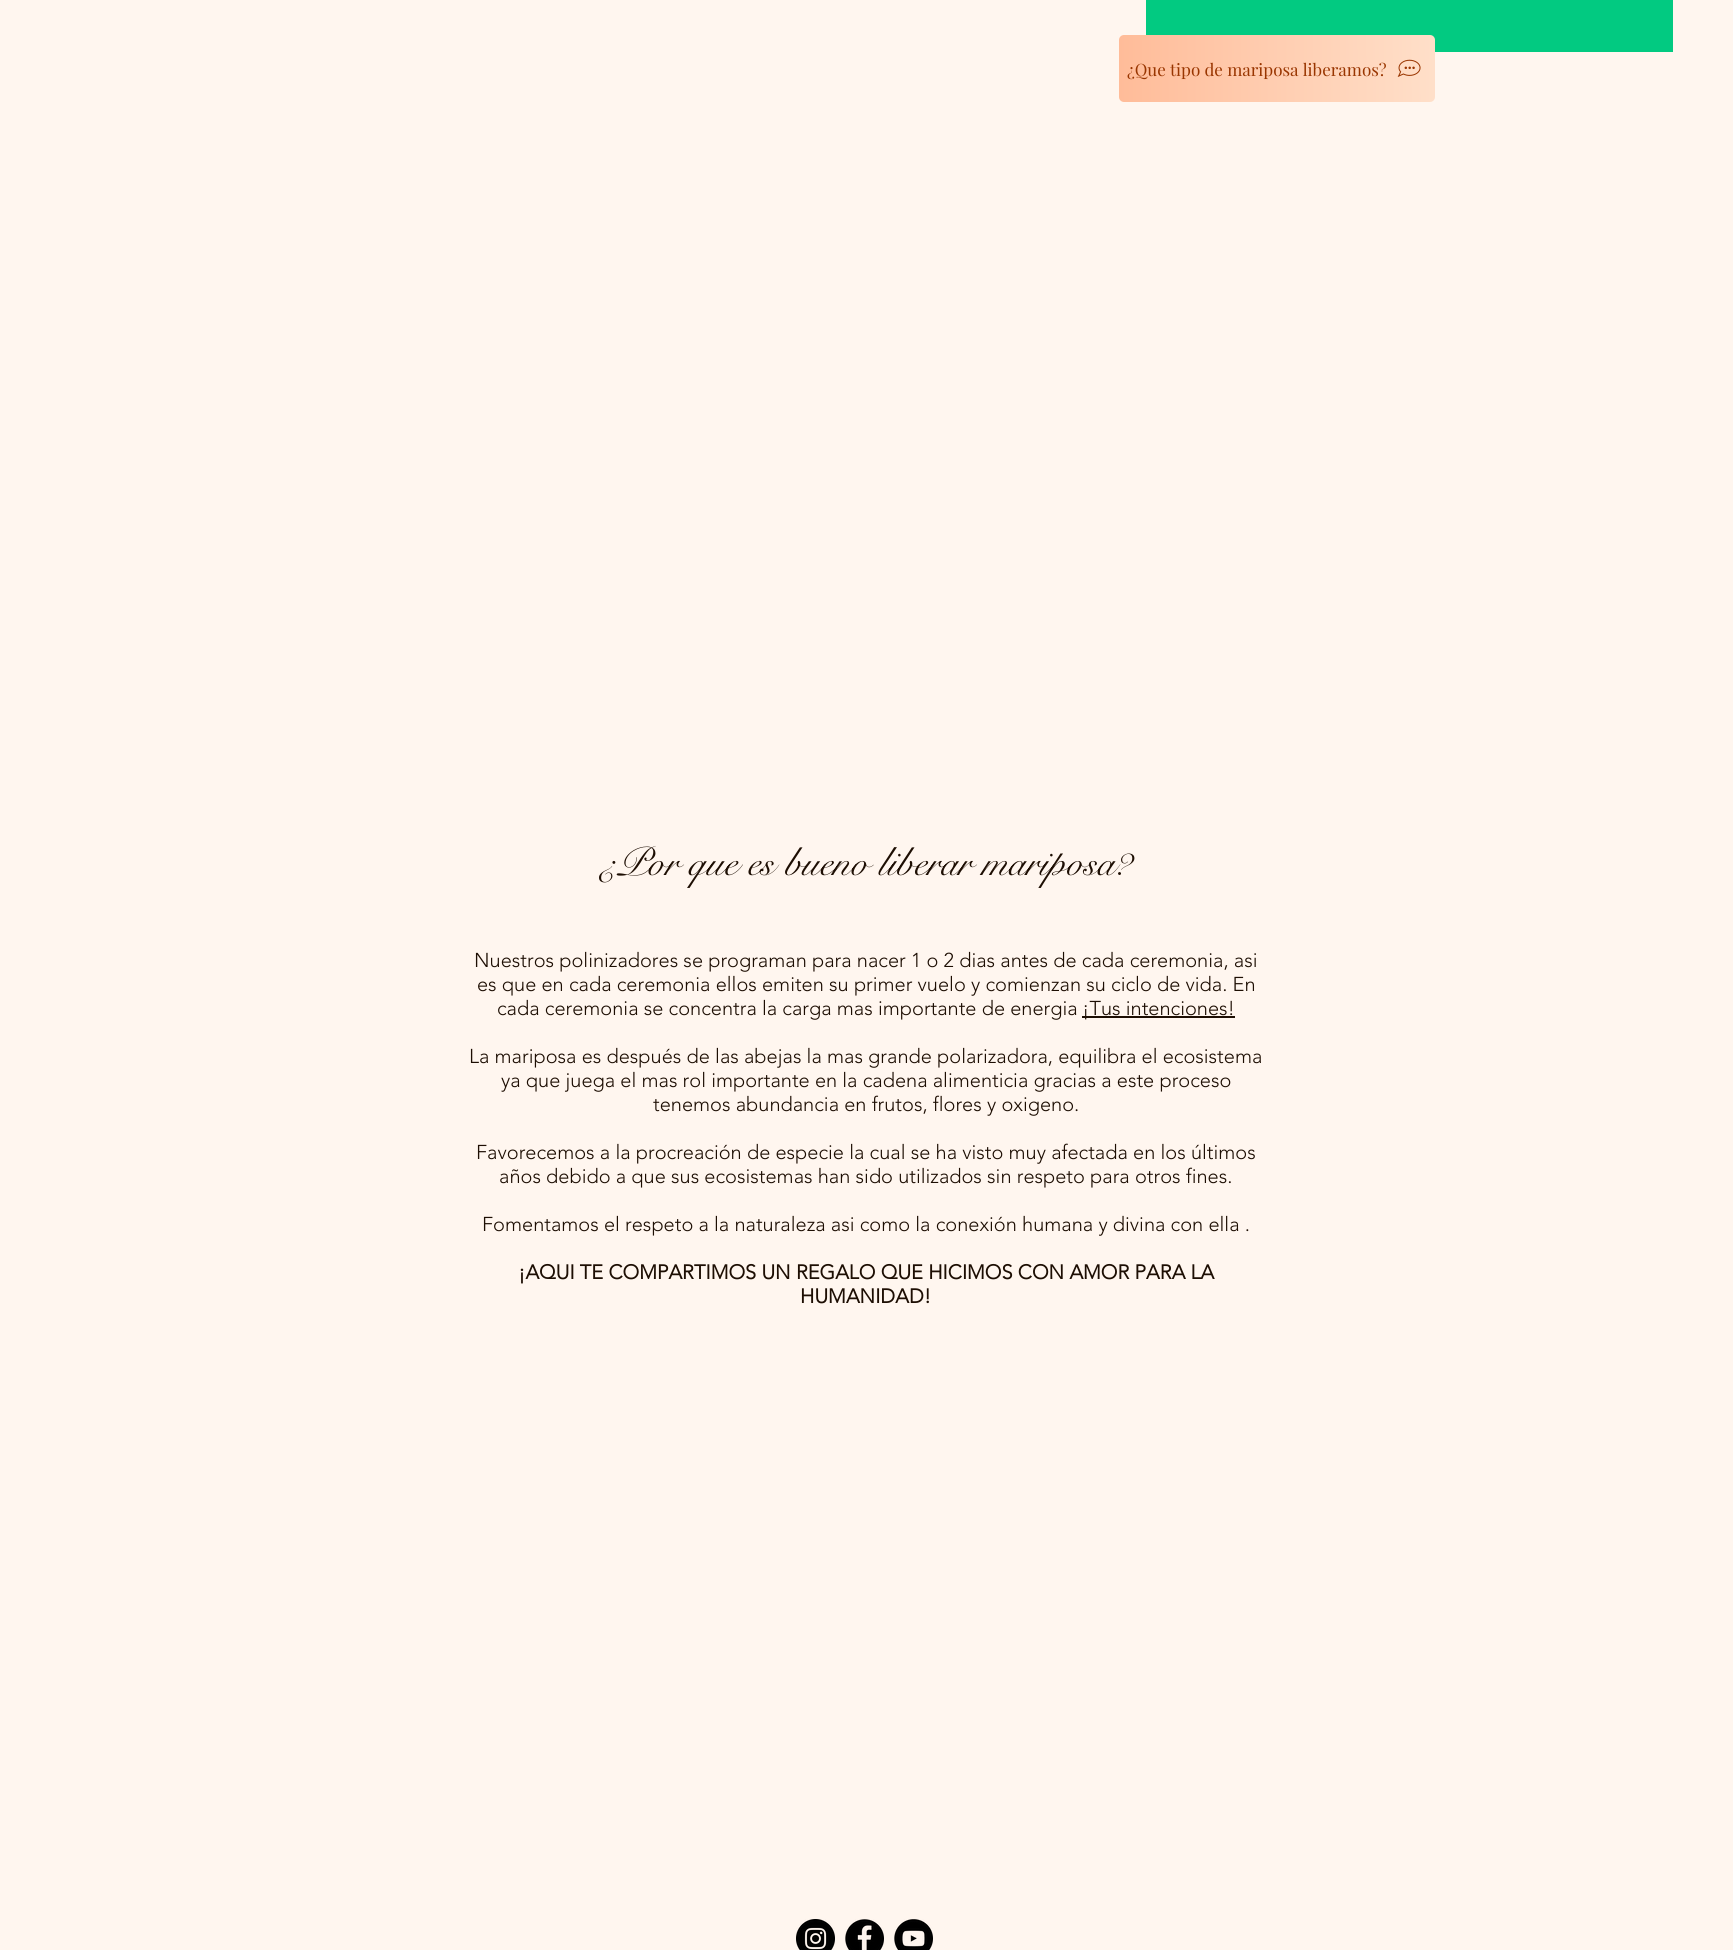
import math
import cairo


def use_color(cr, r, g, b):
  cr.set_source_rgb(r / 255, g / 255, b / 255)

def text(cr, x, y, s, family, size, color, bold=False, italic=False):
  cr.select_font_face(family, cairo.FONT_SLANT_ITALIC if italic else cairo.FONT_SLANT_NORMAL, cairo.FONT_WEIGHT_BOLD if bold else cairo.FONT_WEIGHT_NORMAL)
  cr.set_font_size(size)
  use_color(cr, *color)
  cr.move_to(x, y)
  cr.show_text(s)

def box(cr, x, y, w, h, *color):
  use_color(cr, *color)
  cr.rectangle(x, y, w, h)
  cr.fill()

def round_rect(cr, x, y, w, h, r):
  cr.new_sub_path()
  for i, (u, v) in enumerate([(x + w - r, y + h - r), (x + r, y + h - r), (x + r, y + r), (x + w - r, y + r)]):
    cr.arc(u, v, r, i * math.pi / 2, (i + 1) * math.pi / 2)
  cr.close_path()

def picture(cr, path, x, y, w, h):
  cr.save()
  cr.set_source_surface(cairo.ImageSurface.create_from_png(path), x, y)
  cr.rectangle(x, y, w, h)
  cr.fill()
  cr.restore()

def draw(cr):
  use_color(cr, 255, 246, 239)
  cr.paint()
  box(cr, 1146, 0, 527, 52, 2, 202, 129)
  gradient = cairo.LinearGradient(1119, 69, 1435, 68)
  gradient.add_color_stop_rgba(0, 1, 0.737, 0.6, 1)
  gradient.add_color_stop_rgba(1, 1, 0.875, 0.788, 1)
  cr.set_source(gradient)
  round_rect(cr, 1119, 35, 316, 67, 5)
  cr.fill()
  picture(cr, "img_01.png", 1397, 59, 24, 18)
  box(cr, 1082, 1016, 153, 2, 29, 14, 3)
  picture(cr, "img_02.png", 796, 1919, 39, 31)
  picture(cr, "img_03.png", 845, 1919, 39, 31)
  picture(cr, "img_04.png", 894, 1919, 39, 31)
  text(cr, 1127, 76, "¿Que tipo de mariposa liberamos?", "Playfair Display", 17, (153, 53, 0))
  text(cr, 599, 875, "¿Por que es bueno liberar mariposa?", "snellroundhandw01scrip", 40, (29, 14, 3))
  text(cr, 474, 967, "Nuestros polinizadores se programan para nacer 1 o 2 dias antes de cada ceremonia, asi", "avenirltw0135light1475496 Light", 20, (29, 14, 3))
  text(cr, 477, 991, "es que en cada ceremonia ellos emiten su primer vuelo y comienzan su ciclo de vida. En", "avenirltw0135light1475496 Light", 20, (29, 14, 3))
  text(cr, 497, 1015, "cada ceremonia se concentra la carga mas importante de energia", "avenirltw0135light1475496 Light", 20, (29, 14, 3))
  text(cr, 1082, 1015, "¡Tus intenciones!", "avenirltw0135light1475496 Light", 20, (29, 14, 3))
  text(cr, 469, 1063, "La mariposa es después de las abejas la mas grande polarizadora, equilibra el ecosistema", "avenirltw0135light1475496 Light", 20, (29, 14, 3))
  text(cr, 501, 1087, "ya que juega el mas rol importante en la cadena alimenticia gracias a este proceso", "avenirltw0135light1475496 Light", 20, (29, 14, 3))
  text(cr, 653, 1111, "tenemos abundancia en frutos, flores y oxigeno.", "avenirltw0135light1475496 Light", 20, (29, 14, 3))
  text(cr, 476, 1159, "Favorecemos a la procreación de especie la cual se ha visto muy afectada en los últimos", "avenirltw0135light1475496 Light", 20, (29, 14, 3))
  text(cr, 499, 1183, "años debido a que sus ecosistemas han sido utilizados sin respeto para otros fines.", "avenirltw0135light1475496 Light", 20, (29, 14, 3))
  text(cr, 482, 1231, "Fomentamos el respeto a la naturaleza asi como la conexión humana y divina con ella .", "avenirltw0135light1475496 Light", 20, (29, 14, 3))
  text(cr, 518, 1279, "¡AQUI TE COMPARTIMOS UN REGALO QUE HICIMOS CON AMOR PARA LA", "avenirltw0135light1475496", 20, (29, 14, 3), bold=True)
  text(cr, 800, 1303, "HUMANIDAD!", "avenirltw0135light1475496", 20, (29, 14, 3), bold=True)


surface = cairo.ImageSurface(cairo.FORMAT_RGB24, 1733, 1950)
cr = cairo.Context(surface)
options = cairo.FontOptions()
options.set_hint_metrics(cairo.HINT_METRICS_OFF)
options.set_hint_style(cairo.HINT_STYLE_NONE)
cr.set_font_options(options)
cr.set_miter_limit(4)
draw(cr)
surface.write_to_png("out.png")
